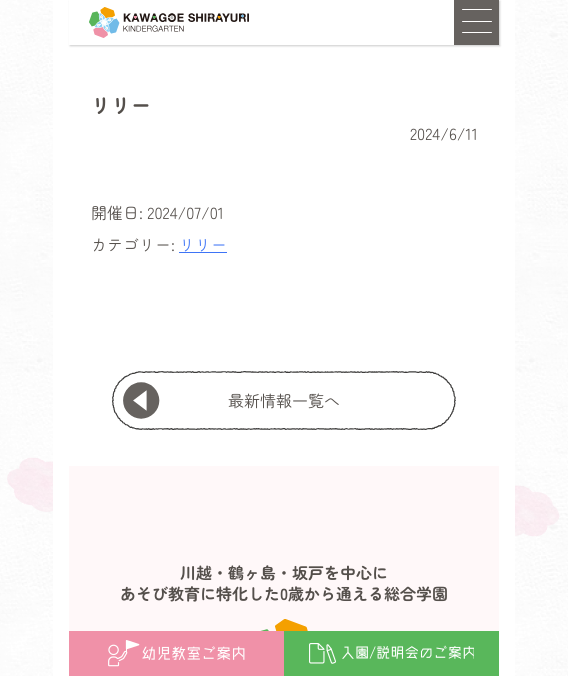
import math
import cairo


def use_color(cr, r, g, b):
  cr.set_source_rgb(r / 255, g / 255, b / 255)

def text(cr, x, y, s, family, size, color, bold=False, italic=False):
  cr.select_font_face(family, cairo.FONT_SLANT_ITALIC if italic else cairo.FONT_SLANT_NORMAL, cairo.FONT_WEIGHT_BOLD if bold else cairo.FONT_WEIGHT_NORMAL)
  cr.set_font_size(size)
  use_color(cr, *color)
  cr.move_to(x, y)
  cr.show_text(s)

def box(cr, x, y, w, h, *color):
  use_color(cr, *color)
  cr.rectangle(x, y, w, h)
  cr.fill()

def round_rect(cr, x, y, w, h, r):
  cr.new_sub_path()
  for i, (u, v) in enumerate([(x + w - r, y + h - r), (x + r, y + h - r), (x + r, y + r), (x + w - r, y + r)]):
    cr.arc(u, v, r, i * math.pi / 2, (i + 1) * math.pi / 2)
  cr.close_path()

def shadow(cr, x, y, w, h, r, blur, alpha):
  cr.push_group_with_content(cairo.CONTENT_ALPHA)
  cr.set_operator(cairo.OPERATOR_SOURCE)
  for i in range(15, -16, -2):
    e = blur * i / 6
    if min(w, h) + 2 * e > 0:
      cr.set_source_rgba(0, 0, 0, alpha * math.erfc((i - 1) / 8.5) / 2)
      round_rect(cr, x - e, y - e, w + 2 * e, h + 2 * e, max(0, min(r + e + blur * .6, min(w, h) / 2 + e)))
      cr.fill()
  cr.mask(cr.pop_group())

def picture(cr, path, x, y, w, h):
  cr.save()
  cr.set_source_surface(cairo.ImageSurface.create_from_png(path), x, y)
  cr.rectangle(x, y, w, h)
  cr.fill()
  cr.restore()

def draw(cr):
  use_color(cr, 255, 255, 255)
  cr.paint()
  picture(cr, "img_01.png", 0, 0, 568, 676)
  box(cr, 53, 0, 462, 676, 255, 255, 255)
  cr.save()
  cr.set_fill_rule(cairo.FILL_RULE_EVEN_ODD)
  cr.new_path()
  cr.move_to(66, 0)
  cr.line_to(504, 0)
  cr.line_to(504, 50)
  cr.line_to(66, 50)
  cr.close_path()
  cr.move_to(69, 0)
  cr.line_to(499, 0)
  cr.line_to(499, 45)
  cr.line_to(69, 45)
  cr.close_path()
  cr.clip()
  use_color(cr, 0, 0, 0)
  shadow(cr, 70, 1, 430, 45, 0, 1, 0.2)
  cr.restore()
  picture(cr, "img_02.png", 89, 7, 160, 31)
  box(cr, 454, 0, 45, 45, 102, 98, 95)
  use_color(cr, 255, 255, 255)
  round_rect(cr, 462, 9, 30, 1, 0.5)
  cr.fill()
  round_rect(cr, 462, 21, 30, 1, 0.5)
  cr.fill()
  round_rect(cr, 462, 32, 30, 1, 0.5)
  cr.fill()
  box(cr, 179, 252, 48, 1, 62, 116, 246)
  picture(cr, "img_03.png", 112, 371, 344, 59)
  box(cr, 69, 466, 430, 165, 255, 248, 249)
  picture(cr, "img_04.png", 260, 619, 48, 12)
  box(cr, 69, 631, 215, 45, 240, 145, 168)
  picture(cr, "img_05.png", 108, 640, 137, 27)
  box(cr, 284, 631, 215, 45, 89, 183, 91)
  picture(cr, "img_06.png", 309, 643, 165, 21)
  text(cr, 91, 113, "リリー", "Zen Maru Gothic", 20, (84, 79, 75), bold=True)
  text(cr, 410, 140, "2024/6/11", "Zen Maru Gothic", 16, (84, 79, 75))
  text(cr, 91, 219, "開催日: 2024/07/01", "Zen Maru Gothic", 16, (84, 79, 75))
  text(cr, 91, 251, "カテゴリー:", "Zen Maru Gothic", 16, (84, 79, 75))
  text(cr, 179, 251, "リリー", "Zen Maru Gothic", 16, (62, 116, 246))
  text(cr, 228, 407, "最新情報一覧へ", "Zen Maru Gothic", 16, (84, 79, 75))
  text(cr, 180, 579, "川越・鶴ヶ島・坂戸を中心に", "Zen Maru Gothic", 16, (84, 79, 75), bold=True)
  text(cr, 120, 600, "あそび教育に特化した0歳から通える総合学園", "Zen Maru Gothic", 16, (84, 79, 75), bold=True)


surface = cairo.ImageSurface(cairo.FORMAT_RGB24, 568, 676)
cr = cairo.Context(surface)
options = cairo.FontOptions()
options.set_hint_metrics(cairo.HINT_METRICS_OFF)
options.set_hint_style(cairo.HINT_STYLE_NONE)
cr.set_font_options(options)
cr.set_miter_limit(4)
draw(cr)
surface.write_to_png("out.png")
